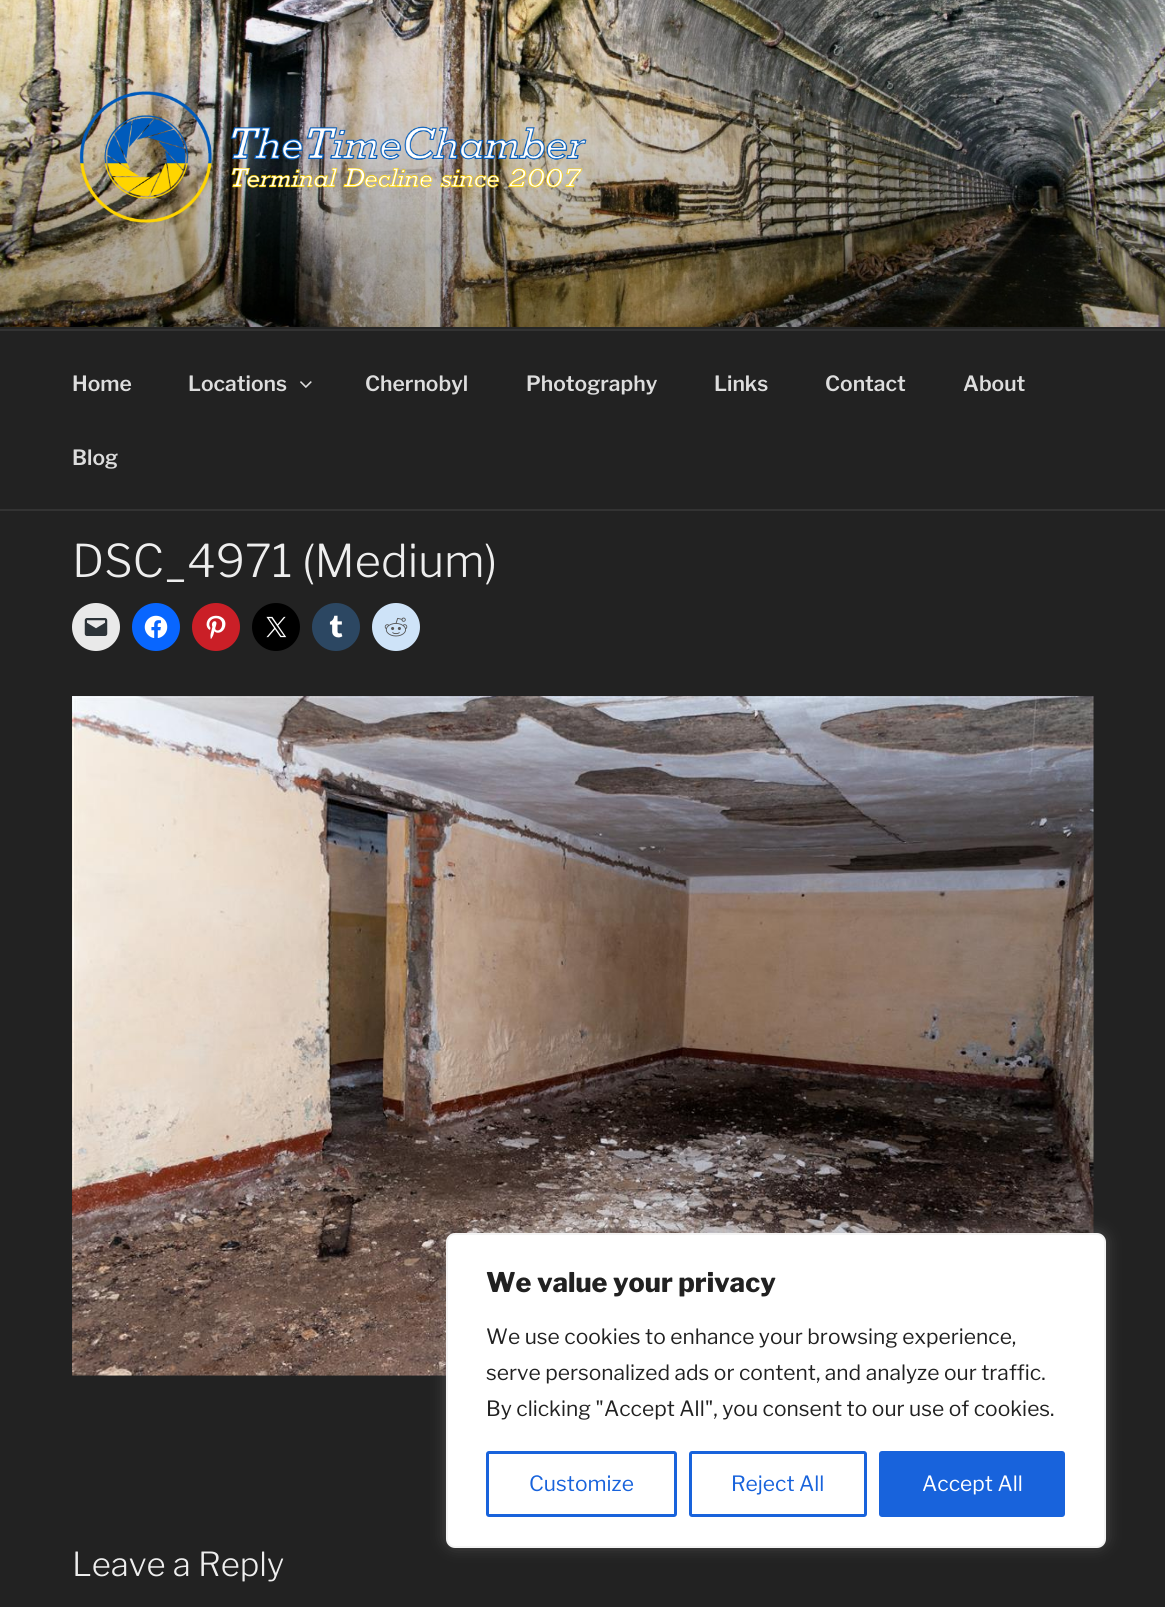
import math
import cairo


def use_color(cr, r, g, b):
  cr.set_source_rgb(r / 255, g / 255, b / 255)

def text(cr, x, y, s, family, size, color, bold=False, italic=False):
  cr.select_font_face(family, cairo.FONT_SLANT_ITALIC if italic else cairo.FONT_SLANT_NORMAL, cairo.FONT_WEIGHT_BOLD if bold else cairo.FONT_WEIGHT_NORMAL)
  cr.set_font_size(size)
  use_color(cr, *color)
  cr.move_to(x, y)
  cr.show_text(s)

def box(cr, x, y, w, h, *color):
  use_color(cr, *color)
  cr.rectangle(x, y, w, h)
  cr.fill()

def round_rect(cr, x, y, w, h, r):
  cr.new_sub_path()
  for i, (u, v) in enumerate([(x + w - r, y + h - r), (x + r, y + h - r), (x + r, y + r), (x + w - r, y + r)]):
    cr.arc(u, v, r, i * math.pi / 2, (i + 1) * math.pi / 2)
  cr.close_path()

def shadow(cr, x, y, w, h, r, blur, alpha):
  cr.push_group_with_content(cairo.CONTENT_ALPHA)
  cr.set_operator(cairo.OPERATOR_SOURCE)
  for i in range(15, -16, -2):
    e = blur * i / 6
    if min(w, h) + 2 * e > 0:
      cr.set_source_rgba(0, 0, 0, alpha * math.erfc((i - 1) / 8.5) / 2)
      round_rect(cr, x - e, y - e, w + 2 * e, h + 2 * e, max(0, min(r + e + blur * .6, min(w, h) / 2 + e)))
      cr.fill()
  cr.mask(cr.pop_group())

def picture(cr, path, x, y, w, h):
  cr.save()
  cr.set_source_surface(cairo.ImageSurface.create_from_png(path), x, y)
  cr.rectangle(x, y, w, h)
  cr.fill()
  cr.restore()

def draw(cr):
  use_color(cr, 34, 34, 34)
  cr.paint()
  box(cr, 0, 327, 1165, 2, 38, 38, 38)
  picture(cr, "img_01.png", 0, 0, 1165, 327)
  picture(cr, "img_02.png", 79, 72, 508, 151)
  box(cr, 0, 329, 1165, 2, 51, 51, 51)
  box(cr, 0, 509, 1165, 2, 51, 51, 51)
  picture(cr, "img_03.png", 300, 381, 12, 7)
  use_color(cr, 233, 233, 233)
  cr.arc(96, 627, 24, 0, 2 * math.pi)
  cr.fill()
  picture(cr, "img_04.png", 84, 618, 24, 18)
  use_color(cr, 8, 102, 255)
  cr.arc(156, 627, 24, 0, 2 * math.pi)
  cr.fill()
  picture(cr, "img_05.png", 144, 615, 24, 23)
  use_color(cr, 202, 31, 39)
  cr.arc(216, 627, 24, 0, 2 * math.pi)
  cr.fill()
  picture(cr, "img_06.png", 206, 615, 20, 24)
  use_color(cr, 0, 0, 0)
  cr.arc(276, 627, 24, 0, 2 * math.pi)
  cr.fill()
  picture(cr, "img_07.png", 266, 616, 21, 22)
  use_color(cr, 44, 71, 98)
  cr.arc(336, 627, 24, 0, 2 * math.pi)
  cr.fill()
  picture(cr, "img_08.png", 329, 615, 14, 23)
  use_color(cr, 206, 227, 248)
  cr.arc(396, 627, 24, 0, 2 * math.pi)
  cr.fill()
  picture(cr, "img_09.png", 384, 617, 24, 20)
  picture(cr, "img_10.png", 72, 696, 1022, 680)
  use_color(cr, 172, 171, 171)
  shadow(cr, 446, 1232, 660, 315, 9, 7.5, 0.3)
  use_color(cr, 255, 255, 255)
  round_rect(cr, 447, 1234, 658, 313, 8)
  cr.fill_preserve()
  use_color(cr, 244, 244, 244)
  cr.stroke()
  round_rect(cr, 487.5, 1452.5, 188, 63, 1.5)
  use_color(cr, 24, 99, 220)
  cr.set_line_width(3)
  cr.stroke()
  round_rect(cr, 690.5, 1452.5, 175, 63, 1.5)
  cr.stroke()
  round_rect(cr, 880.5, 1452.5, 183, 63, 1.5)
  cr.fill_preserve()
  cr.stroke()
  text(cr, 72, 391, "Home", "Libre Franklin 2 Thin", 21, (221, 221, 221))
  text(cr, 188, 391, "Locations", "Libre Franklin 2 Thin", 21, (221, 221, 221))
  text(cr, 365, 391, "Chernobyl", "Libre Franklin 2 Thin", 21, (221, 221, 221))
  text(cr, 526, 391, "Photography", "Libre Franklin 2 Thin", 21, (221, 221, 221))
  text(cr, 714, 391, "Links", "Libre Franklin 2 Thin", 21, (221, 221, 221))
  text(cr, 825, 391, "Contact", "Libre Franklin 2 Thin", 21, (221, 221, 221))
  text(cr, 963, 391, "About", "Libre Franklin 2 Thin", 21, (221, 221, 221))
  text(cr, 72, 465, "Blog", "Libre Franklin 2 Thin", 21, (221, 221, 221))
  text(cr, 72, 577, "DSC_4971 (Medium)", "Libre Franklin Thin", 45, (238, 238, 238))
  text(cr, 72, 1576, "Leave a Reply", "Libre Franklin Thin", 33, (238, 238, 238))
  text(cr, 486, 1292, "We value your privacy", "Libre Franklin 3 Thin", 27, (33, 33, 33))
  text(cr, 486, 1344, "We use cookies to enhance your browsing experience,", "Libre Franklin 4 Thin", 21, (33, 33, 33))
  text(cr, 486, 1380, "serve personalized ads or content, and analyze our traffic.", "Libre Franklin 4 Thin", 21, (33, 33, 33))
  text(cr, 486, 1416, "By clicking \"Accept All\", you consent to our use of cookies.", "Libre Franklin 4 Thin", 21, (33, 33, 33))
  text(cr, 529, 1491, "Customize", "Libre Franklin 4 Thin", 21, (24, 99, 220))
  text(cr, 731, 1491, "Reject All", "Libre Franklin 4 Thin", 21, (24, 99, 220))
  text(cr, 922, 1491, "Accept All", "Libre Franklin 4 Thin", 21, (255, 255, 255))


surface = cairo.ImageSurface(cairo.FORMAT_RGB24, 1165, 1607)
cr = cairo.Context(surface)
options = cairo.FontOptions()
options.set_hint_metrics(cairo.HINT_METRICS_OFF)
options.set_hint_style(cairo.HINT_STYLE_NONE)
cr.set_font_options(options)
cr.set_miter_limit(4)
draw(cr)
surface.write_to_png("out.png")
